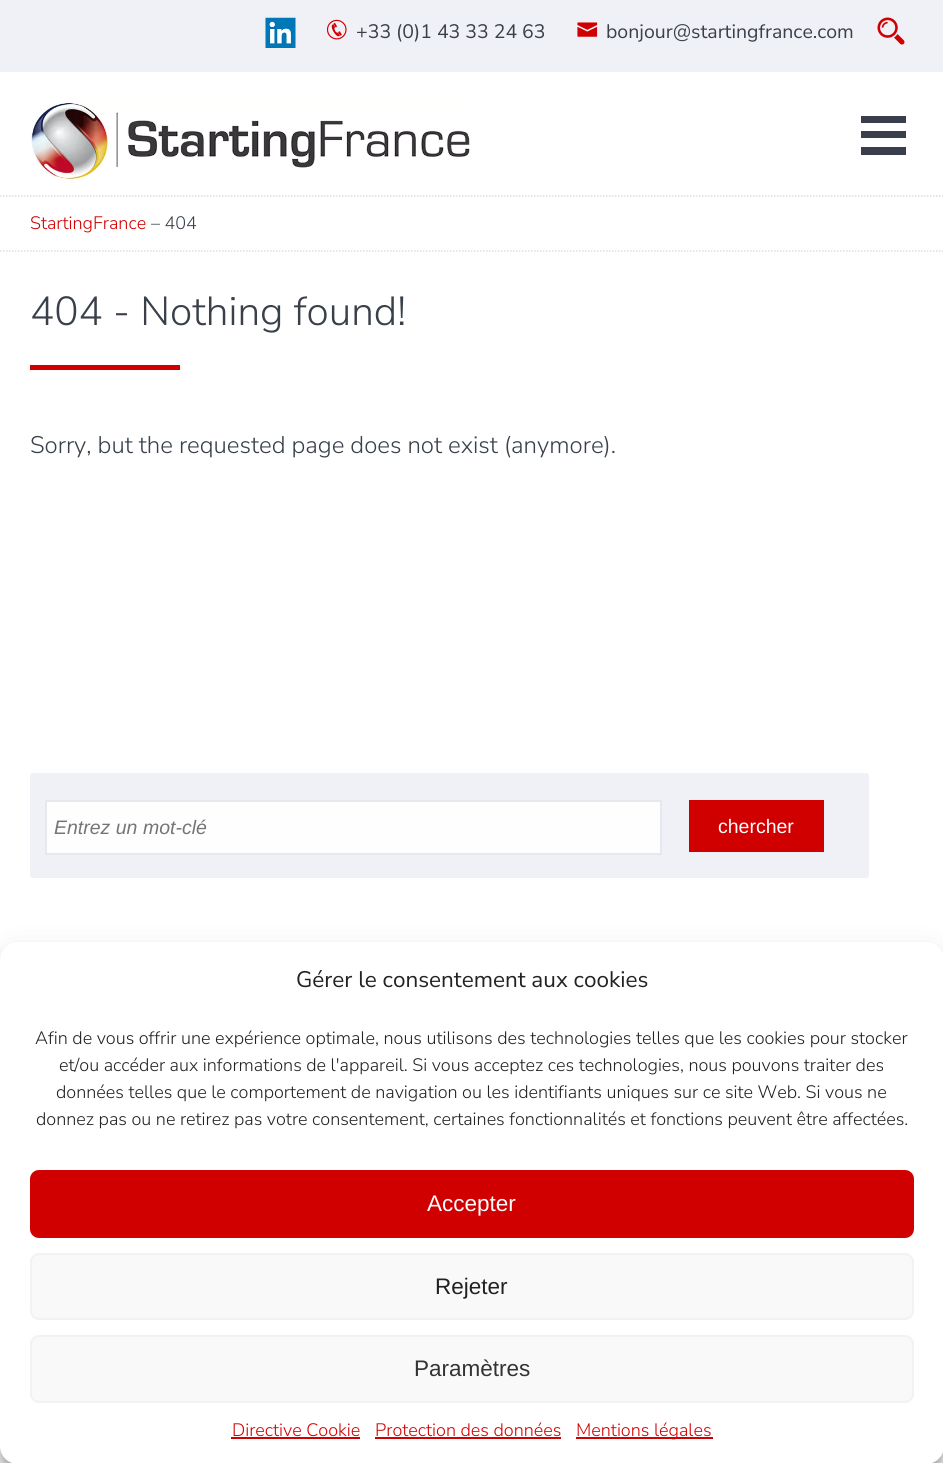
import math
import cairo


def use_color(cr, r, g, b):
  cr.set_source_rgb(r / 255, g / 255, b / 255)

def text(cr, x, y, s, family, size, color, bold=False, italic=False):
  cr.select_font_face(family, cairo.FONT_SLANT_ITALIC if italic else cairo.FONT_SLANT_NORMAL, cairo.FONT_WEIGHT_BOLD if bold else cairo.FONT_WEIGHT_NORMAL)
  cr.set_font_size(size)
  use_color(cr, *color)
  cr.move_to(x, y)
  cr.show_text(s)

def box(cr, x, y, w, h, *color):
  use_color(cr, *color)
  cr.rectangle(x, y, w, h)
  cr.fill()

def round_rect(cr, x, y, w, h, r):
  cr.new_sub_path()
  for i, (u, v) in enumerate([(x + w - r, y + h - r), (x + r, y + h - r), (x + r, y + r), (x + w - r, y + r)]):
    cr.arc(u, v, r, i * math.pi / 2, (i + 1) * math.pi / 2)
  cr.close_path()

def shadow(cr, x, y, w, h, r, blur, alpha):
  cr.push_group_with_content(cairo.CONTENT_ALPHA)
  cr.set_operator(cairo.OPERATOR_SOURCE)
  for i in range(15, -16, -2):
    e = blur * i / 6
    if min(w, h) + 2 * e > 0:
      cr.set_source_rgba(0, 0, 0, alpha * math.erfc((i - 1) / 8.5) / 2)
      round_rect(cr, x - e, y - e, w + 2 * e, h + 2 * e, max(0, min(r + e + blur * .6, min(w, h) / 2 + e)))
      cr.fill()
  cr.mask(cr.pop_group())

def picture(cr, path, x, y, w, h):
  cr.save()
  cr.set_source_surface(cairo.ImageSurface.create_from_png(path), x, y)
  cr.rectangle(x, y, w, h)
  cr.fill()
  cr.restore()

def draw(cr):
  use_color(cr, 255, 255, 255)
  cr.paint()
  box(cr, 0, 0, 943, 72, 240, 241, 246)
  picture(cr, "img_01.png", 265, 17, 31, 31)
  picture(cr, "img_02.png", 326, 19, 21, 21)
  picture(cr, "img_03.png", 577, 22, 21, 15)
  picture(cr, "img_04.png", 877, 17, 28, 28)
  picture(cr, "img_05.png", 30, 102, 441, 78)
  box(cr, 861, 116, 45, 7, 56, 63, 75)
  box(cr, 861, 131, 45, 7, 56, 63, 75)
  box(cr, 861, 147, 45, 8, 56, 63, 75)
  cr.new_path()
  cr.move_to(0, 196)
  cr.line_to(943.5, 196)
  use_color(cr, 221, 220, 230)
  cr.set_line_width(1.5)
  cr.set_dash([1.5, 1.5])
  cr.stroke()
  cr.new_path()
  cr.move_to(0, 251)
  cr.line_to(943.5, 251)
  cr.stroke()
  box(cr, 30, 365, 150, 5, 209, 0, 0)
  use_color(cr, 240, 241, 246)
  round_rect(cr, 30, 773, 839, 105, 3)
  cr.fill()
  use_color(cr, 254, 254, 254)
  cr.rectangle(46, 801, 615, 53)
  cr.fill_preserve()
  use_color(cr, 230, 232, 237)
  cr.set_line_width(2)
  cr.set_dash([])
  cr.stroke()
  box(cr, 689, 800, 135, 52, 209, 0, 0)
  use_color(cr, 0, 0, 0)
  shadow(cr, 0, 951, 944, 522, 18, 4.5, 0.23)
  shadow(cr, 0, 957, 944, 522, 18, 15, 0.19)
  use_color(cr, 255, 255, 255)
  round_rect(cr, 0, 942, 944, 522, 18)
  cr.fill()
  use_color(cr, 209, 0, 0)
  round_rect(cr, 31, 1171, 882, 66, 8)
  cr.fill_preserve()
  cr.stroke()
  use_color(cr, 249, 249, 249)
  round_rect(cr, 31, 1254, 882, 65, 8)
  cr.fill_preserve()
  use_color(cr, 242, 242, 242)
  cr.stroke()
  use_color(cr, 249, 249, 249)
  round_rect(cr, 31, 1336, 882, 66, 8)
  cr.fill_preserve()
  use_color(cr, 242, 242, 242)
  cr.stroke()
  box(cr, 231, 1437, 129, 2, 209, 0, 0)
  box(cr, 375, 1437, 186, 2, 209, 0, 0)
  box(cr, 576, 1437, 137, 2, 209, 0, 0)
  text(cr, 356, 38, "+33 (0)1 43 33 24 63", "Nunito Sans", 19.5, (57, 64, 74))
  text(cr, 606, 38, "bonjour@startingfrance.com", "Nunito Sans", 19.5, (57, 64, 74))
  text(cr, 30, 229, "StartingFrance", "Nunito Sans Light", 18, (209, 0, 0))
  text(cr, 151, 229, "– 404", "Nunito Sans Light", 18, (57, 64, 74))
  text(cr, 30, 325, "404 - Nothing found!", "Nunito Sans Light", 40.5, (57, 64, 74))
  text(cr, 30, 453, "Sorry, but the requested page does not exist (anymore).", "Nunito Sans Light", 24, (57, 64, 74))
  text(cr, 54, 834, "Entrez un mot-clé", "Liberation Sans", 19.5, (117, 117, 117), italic=True)
  text(cr, 718, 833, "chercher", "Liberation Sans", 19.5, (255, 255, 255))
  text(cr, 296, 987, "Gérer le consentement aux cookies", "Nunito Sans", 22.5, (34, 34, 34))
  text(cr, 35, 1044, "Afin de vous offrir une expérience optimale, nous utilisons des technologies telles que les cookies pour stocker", "Nunito Sans Light", 18, (34, 34, 34))
  text(cr, 59, 1071, "et/ou accéder aux informations de l'appareil. Si vous acceptez ces technologies, nous pouvons traiter des", "Nunito Sans Light", 18, (34, 34, 34))
  text(cr, 56, 1098, "données telles que le comportement de navigation ou les identifiants uniques sur ce site Web. Si vous ne", "Nunito Sans Light", 18, (34, 34, 34))
  text(cr, 36, 1125, "donnez pas ou ne retirez pas votre consentement, certaines fonctionnalités et fonctions peuvent être affectées.", "Nunito Sans Light", 18, (34, 34, 34))
  text(cr, 427, 1211, "Accepter", "Liberation Sans", 22.5, (255, 255, 255))
  text(cr, 435, 1294, "Rejeter", "Liberation Sans", 22.5, (34, 34, 34))
  text(cr, 414, 1376, "Paramètres", "Liberation Sans", 22.5, (51, 51, 51))
  text(cr, 232, 1436, "Directive Cookie", "Nunito Sans Light", 18, (209, 0, 0))
  text(cr, 375, 1436, "Protection des données", "Nunito Sans Light", 18, (209, 0, 0))
  text(cr, 576, 1436, "Mentions légales", "Nunito Sans Light", 18, (209, 0, 0))


surface = cairo.ImageSurface(cairo.FORMAT_RGB24, 943, 1463)
cr = cairo.Context(surface)
options = cairo.FontOptions()
options.set_hint_metrics(cairo.HINT_METRICS_OFF)
options.set_hint_style(cairo.HINT_STYLE_NONE)
cr.set_font_options(options)
cr.set_miter_limit(4)
draw(cr)
surface.write_to_png("out.png")
